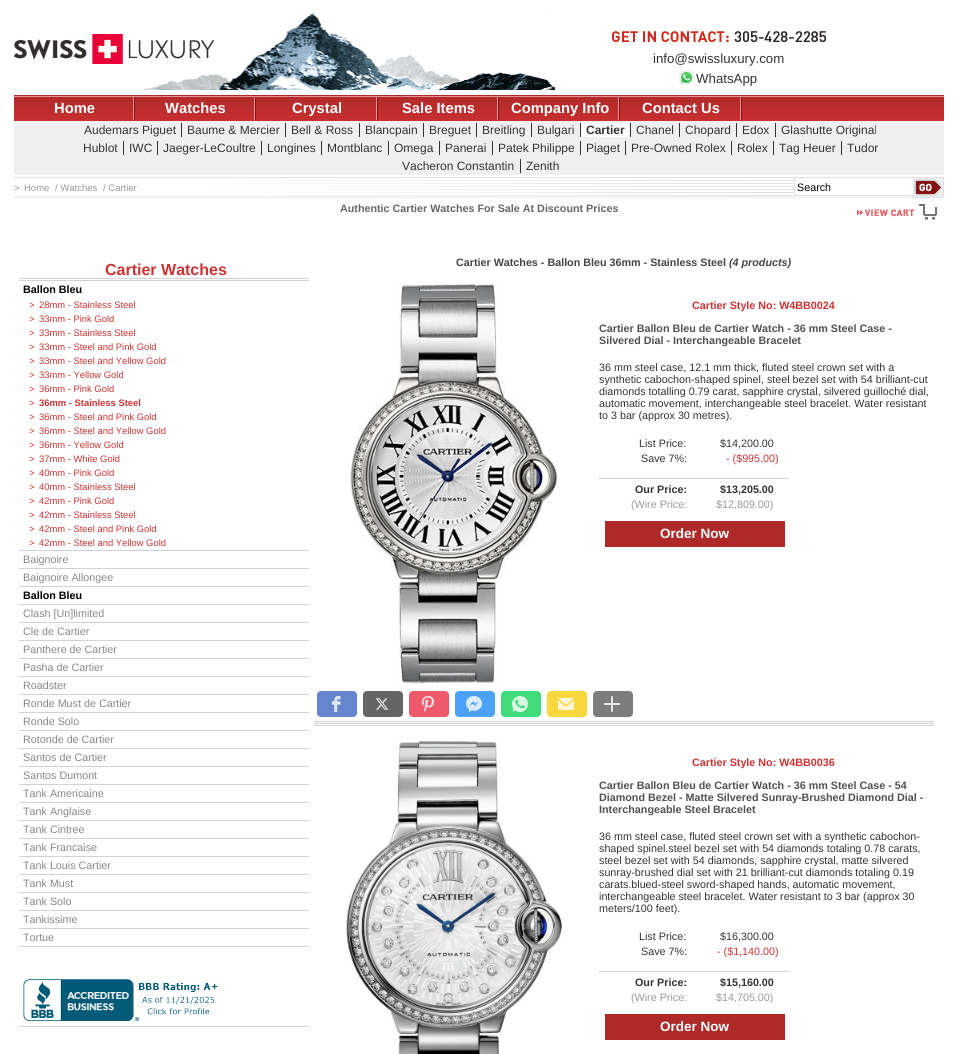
import math
import cairo


def use_color(cr, r, g, b):
  cr.set_source_rgb(r / 255, g / 255, b / 255)

def text(cr, x, y, s, family, size, color, bold=False, italic=False):
  cr.select_font_face(family, cairo.FONT_SLANT_ITALIC if italic else cairo.FONT_SLANT_NORMAL, cairo.FONT_WEIGHT_BOLD if bold else cairo.FONT_WEIGHT_NORMAL)
  cr.set_font_size(size)
  use_color(cr, *color)
  cr.move_to(x, y)
  cr.show_text(s)

def box(cr, x, y, w, h, *color):
  use_color(cr, *color)
  cr.rectangle(x, y, w, h)
  cr.fill()

def round_rect(cr, x, y, w, h, r):
  cr.new_sub_path()
  for i, (u, v) in enumerate([(x + w - r, y + h - r), (x + r, y + h - r), (x + r, y + r), (x + w - r, y + r)]):
    cr.arc(u, v, r, i * math.pi / 2, (i + 1) * math.pi / 2)
  cr.close_path()

def picture(cr, path, x, y, w, h):
  cr.save()
  cr.set_source_surface(cairo.ImageSurface.create_from_png(path), x, y)
  cr.rectangle(x, y, w, h)
  cr.fill()
  cr.restore()

def draw(cr):
  use_color(cr, 255, 255, 255)
  cr.paint()
  picture(cr, "img_01.png", 144, 13, 411, 77)
  picture(cr, "img_02.png", 14, 34, 200, 30)
  picture(cr, "img_03.png", 612, 31, 214, 11)
  picture(cr, "img_04.png", 679, 70, 15, 15)
  box(cr, 14, 95, 930, 1, 175, 41, 41)
  picture(cr, "img_05.png", 14, 96, 930, 25)
  picture(cr, "img_06.png", 133, 97, 2, 23)
  picture(cr, "img_06.png", 254, 97, 2, 23)
  picture(cr, "img_06.png", 376, 97, 2, 23)
  picture(cr, "img_06.png", 497, 97, 2, 23)
  picture(cr, "img_06.png", 618, 97, 2, 23)
  picture(cr, "img_06.png", 740, 97, 2, 23)
  box(cr, 14, 121, 930, 54, 239, 239, 239)
  box(cr, 181, 123, 1, 14, 51, 51, 51)
  box(cr, 285, 123, 1, 14, 51, 51, 51)
  box(cr, 359, 123, 1, 14, 51, 51, 51)
  box(cr, 423, 123, 1, 14, 51, 51, 51)
  box(cr, 476, 123, 1, 14, 51, 51, 51)
  box(cr, 531, 123, 1, 14, 51, 51, 51)
  box(cr, 581, 123, 48, 14, 255, 255, 255)
  box(cr, 580, 123, 1, 14, 51, 51, 51)
  box(cr, 630, 123, 1, 14, 51, 51, 51)
  box(cr, 679, 123, 1, 14, 51, 51, 51)
  box(cr, 736, 123, 1, 14, 51, 51, 51)
  box(cr, 775, 123, 1, 14, 51, 51, 51)
  box(cr, 123, 141, 1, 14, 51, 51, 51)
  box(cr, 157, 141, 1, 14, 51, 51, 51)
  box(cr, 261, 141, 1, 14, 51, 51, 51)
  box(cr, 321, 141, 1, 14, 51, 51, 51)
  box(cr, 388, 141, 1, 14, 51, 51, 51)
  box(cr, 439, 141, 1, 14, 51, 51, 51)
  box(cr, 492, 141, 1, 14, 51, 51, 51)
  box(cr, 580, 141, 1, 14, 51, 51, 51)
  box(cr, 625, 141, 1, 14, 51, 51, 51)
  box(cr, 731, 141, 1, 14, 51, 51, 51)
  box(cr, 773, 141, 1, 14, 51, 51, 51)
  box(cr, 841, 141, 1, 14, 51, 51, 51)
  box(cr, 520, 159, 1, 14, 51, 51, 51)
  picture(cr, "img_07.png", 14, 177, 930, 22)
  box(cr, 795, 180, 118, 13, 255, 255, 255)
  cr.rectangle(794.5, 177.5, 120, 18)
  use_color(cr, 226, 226, 226)
  cr.set_line_width(1)
  cr.stroke()
  picture(cr, "img_08.png", 914, 178, 29, 19)
  cr.rectangle(913.5, 177.5, 30, 20)
  cr.stroke()
  picture(cr, "img_09.png", 857, 204, 80, 16)
  box(cr, 19, 278, 290, 1, 210, 210, 210)
  box(cr, 19, 280, 290, 1, 210, 210, 210)
  box(cr, 19, 550, 290, 1, 210, 210, 210)
  box(cr, 19, 568, 290, 1, 210, 210, 210)
  box(cr, 19, 586, 290, 1, 210, 210, 210)
  box(cr, 19, 604, 290, 1, 210, 210, 210)
  box(cr, 19, 622, 290, 1, 210, 210, 210)
  box(cr, 19, 640, 290, 1, 210, 210, 210)
  box(cr, 19, 658, 290, 1, 210, 210, 210)
  box(cr, 19, 676, 290, 1, 210, 210, 210)
  box(cr, 19, 694, 290, 1, 210, 210, 210)
  box(cr, 19, 712, 290, 1, 210, 210, 210)
  box(cr, 19, 730, 290, 1, 210, 210, 210)
  box(cr, 19, 748, 290, 1, 210, 210, 210)
  box(cr, 19, 766, 290, 1, 210, 210, 210)
  box(cr, 19, 784, 290, 1, 210, 210, 210)
  box(cr, 19, 802, 290, 1, 210, 210, 210)
  box(cr, 19, 820, 290, 1, 210, 210, 210)
  box(cr, 19, 838, 290, 1, 210, 210, 210)
  box(cr, 19, 856, 290, 1, 210, 210, 210)
  box(cr, 19, 874, 290, 1, 210, 210, 210)
  box(cr, 19, 892, 290, 1, 210, 210, 210)
  box(cr, 19, 910, 290, 1, 210, 210, 210)
  box(cr, 19, 928, 290, 1, 210, 210, 210)
  box(cr, 19, 946, 290, 1, 210, 210, 210)
  picture(cr, "img_10.png", 23, 979, 195, 42)
  box(cr, 19, 1026, 290, 1, 210, 210, 210)
  box(cr, 314, 721, 620, 1, 210, 210, 210)
  box(cr, 314, 723, 620, 1, 210, 210, 210)
  picture(cr, "img_11.png", 350, 284, 208, 400)
  box(cr, 599, 478, 190, 1, 210, 210, 210)
  box(cr, 605, 521, 180, 26, 175, 41, 41)
  use_color(cr, 101, 134, 205)
  round_rect(cr, 317, 691, 40, 26, 4)
  cr.fill()
  picture(cr, "img_12.png", 331, 696, 10, 16)
  use_color(cr, 101, 101, 101)
  round_rect(cr, 363, 691, 40, 26, 4)
  cr.fill()
  picture(cr, "img_13.png", 375, 698, 14, 12)
  use_color(cr, 238, 90, 106)
  round_rect(cr, 409, 691, 40, 26, 4)
  cr.fill()
  picture(cr, "img_14.png", 421, 696, 14, 16)
  use_color(cr, 76, 162, 249)
  round_rect(cr, 455, 691, 40, 26, 4)
  cr.fill()
  picture(cr, "img_15.png", 466, 696, 16, 16)
  use_color(cr, 66, 219, 123)
  round_rect(cr, 501, 691, 40, 26, 4)
  cr.fill()
  picture(cr, "img_16.png", 512, 696, 16, 16)
  use_color(cr, 246, 215, 60)
  round_rect(cr, 547, 691, 40, 26, 4)
  cr.fill()
  picture(cr, "img_17.png", 558, 697, 16, 14)
  use_color(cr, 125, 125, 125)
  round_rect(cr, 593, 691, 40, 26, 4)
  cr.fill()
  picture(cr, "img_18.png", 604, 696, 16, 16)
  box(cr, 314, 725, 620, 1, 210, 210, 210)
  picture(cr, "img_19.png", 346, 741, 216, 313)
  box(cr, 599, 971, 190, 1, 210, 210, 210)
  box(cr, 605, 1014, 180, 26, 175, 41, 41)
  text(cr, 653, 63, "info@swissluxury.com", "Liberation Sans", 13.25, (51, 51, 51))
  text(cr, 696, 83, "WhatsApp", "Liberation Sans", 13.25, (51, 51, 51))
  text(cr, 54, 113, "Home", "Liberation Sans", 14.75, (255, 255, 255), bold=True)
  text(cr, 165, 113, "Watches", "Liberation Sans", 14.75, (255, 255, 255), bold=True)
  text(cr, 292, 113, "Crystal", "Liberation Sans", 14.75, (255, 255, 255), bold=True)
  text(cr, 402, 113, "Sale Items", "Liberation Sans", 14.75, (255, 255, 255), bold=True)
  text(cr, 511, 113, "Company Info", "Liberation Sans", 14.75, (255, 255, 255), bold=True)
  text(cr, 642, 113, "Contact Us", "Liberation Sans", 14.75, (255, 255, 255), bold=True)
  text(cr, 84, 134, "Audemars Piguet", "Liberation Sans", 12, (51, 51, 51))
  text(cr, 187, 134, "Baume & Mercier", "Liberation Sans", 12, (51, 51, 51))
  text(cr, 291, 134, "Bell & Ross", "Liberation Sans", 12, (51, 51, 51))
  text(cr, 365, 134, "Blancpain", "Liberation Sans", 12, (51, 51, 51))
  text(cr, 429, 134, "Breguet", "Liberation Sans", 12, (51, 51, 51))
  text(cr, 482, 134, "Breitling", "Liberation Sans", 12, (51, 51, 51))
  text(cr, 537, 134, "Bulgari", "Liberation Sans", 12, (51, 51, 51))
  text(cr, 586, 134, "Cartier", "Liberation Sans", 12, (51, 51, 51), bold=True)
  text(cr, 636, 134, "Chanel", "Liberation Sans", 12, (51, 51, 51))
  text(cr, 685, 134, "Chopard", "Liberation Sans", 12, (51, 51, 51))
  text(cr, 742, 134, "Edox", "Liberation Sans", 12, (51, 51, 51))
  text(cr, 781, 134, "Glashutte Original", "Liberation Sans", 12, (51, 51, 51))
  text(cr, 83, 152, "Hublot", "Liberation Sans", 12, (51, 51, 51))
  text(cr, 129, 152, "IWC", "Liberation Sans", 12, (51, 51, 51))
  text(cr, 163, 152, "Jaeger-LeCoultre", "Liberation Sans", 12, (51, 51, 51))
  text(cr, 267, 152, "Longines", "Liberation Sans", 12, (51, 51, 51))
  text(cr, 327, 152, "Montblanc", "Liberation Sans", 12, (51, 51, 51))
  text(cr, 394, 152, "Omega", "Liberation Sans", 12, (51, 51, 51))
  text(cr, 445, 152, "Panerai", "Liberation Sans", 12, (51, 51, 51))
  text(cr, 498, 152, "Patek Philippe", "Liberation Sans", 12, (51, 51, 51))
  text(cr, 586, 152, "Piaget", "Liberation Sans", 12, (51, 51, 51))
  text(cr, 631, 152, "Pre-Owned Rolex", "Liberation Sans", 12, (51, 51, 51))
  text(cr, 737, 152, "Rolex", "Liberation Sans", 12, (51, 51, 51))
  text(cr, 779, 152, "Tag Heuer", "Liberation Sans", 12, (51, 51, 51))
  text(cr, 847, 152, "Tudor", "Liberation Sans", 12, (51, 51, 51))
  text(cr, 402, 170, "Vacheron Constantin", "Liberation Sans", 12, (51, 51, 51))
  text(cr, 526, 170, "Zenith", "Liberation Sans", 12, (51, 51, 51))
  text(cr, 14, 191, ">", "Liberation Sans", 9.5, (153, 153, 153))
  text(cr, 24, 191, "Home", "Liberation Sans", 9.5, (153, 153, 153))
  text(cr, 55, 191, "/ Watches", "Liberation Sans", 9.5, (153, 153, 153))
  text(cr, 103, 191, "/ Cartier", "Liberation Sans", 9.5, (153, 153, 153))
  text(cr, 797, 191, "Search", "Liberation Sans", 10.75, (0, 0, 0))
  text(cr, 340, 212, "Authentic Cartier Watches For Sale At Discount Prices", "Liberation Sans", 10.75, (102, 102, 102), bold=True)
  text(cr, 105, 275, "Cartier Watches", "Liberation Sans", 16, (204, 51, 51), bold=True)
  text(cr, 23, 293, "Ballon Bleu", "Liberation Sans", 10.75, (0, 0, 0), bold=True)
  text(cr, 29, 308, ">", "Liberation Sans", 9.4, (204, 51, 51))
  text(cr, 39, 308, "28mm - Stainless Steel", "Liberation Sans", 9.4, (204, 51, 51))
  text(cr, 29, 322, ">", "Liberation Sans", 9.4, (204, 51, 51))
  text(cr, 39, 322, "33mm - Pink Gold", "Liberation Sans", 9.4, (204, 51, 51))
  text(cr, 29, 336, ">", "Liberation Sans", 9.4, (204, 51, 51))
  text(cr, 39, 336, "33mm - Stainless Steel", "Liberation Sans", 9.4, (204, 51, 51))
  text(cr, 29, 350, ">", "Liberation Sans", 9.4, (204, 51, 51))
  text(cr, 39, 350, "33mm - Steel and Pink Gold", "Liberation Sans", 9.4, (204, 51, 51))
  text(cr, 29, 364, ">", "Liberation Sans", 9.4, (204, 51, 51))
  text(cr, 39, 364, "33mm - Steel and Yellow Gold", "Liberation Sans", 9.4, (204, 51, 51))
  text(cr, 29, 378, ">", "Liberation Sans", 9.4, (204, 51, 51))
  text(cr, 39, 378, "33mm - Yellow Gold", "Liberation Sans", 9.4, (204, 51, 51))
  text(cr, 29, 392, ">", "Liberation Sans", 9.4, (204, 51, 51))
  text(cr, 39, 392, "36mm - Pink Gold", "Liberation Sans", 9.4, (204, 51, 51))
  text(cr, 29, 406, ">", "Liberation Sans", 9.4, (204, 51, 51))
  text(cr, 39, 406, "36mm - Stainless Steel", "Liberation Sans", 9.4, (204, 51, 51), bold=True)
  text(cr, 29, 420, ">", "Liberation Sans", 9.4, (204, 51, 51))
  text(cr, 39, 420, "36mm - Steel and Pink Gold", "Liberation Sans", 9.4, (204, 51, 51))
  text(cr, 29, 434, ">", "Liberation Sans", 9.4, (204, 51, 51))
  text(cr, 39, 434, "36mm - Steel and Yellow Gold", "Liberation Sans", 9.4, (204, 51, 51))
  text(cr, 29, 448, ">", "Liberation Sans", 9.4, (204, 51, 51))
  text(cr, 39, 448, "36mm - Yellow Gold", "Liberation Sans", 9.4, (204, 51, 51))
  text(cr, 29, 462, ">", "Liberation Sans", 9.4, (204, 51, 51))
  text(cr, 39, 462, "37mm - White Gold", "Liberation Sans", 9.4, (204, 51, 51))
  text(cr, 29, 476, ">", "Liberation Sans", 9.4, (204, 51, 51))
  text(cr, 39, 476, "40mm - Pink Gold", "Liberation Sans", 9.4, (204, 51, 51))
  text(cr, 29, 490, ">", "Liberation Sans", 9.4, (204, 51, 51))
  text(cr, 39, 490, "40mm - Stainless Steel", "Liberation Sans", 9.4, (204, 51, 51))
  text(cr, 29, 504, ">", "Liberation Sans", 9.4, (204, 51, 51))
  text(cr, 39, 504, "42mm - Pink Gold", "Liberation Sans", 9.4, (204, 51, 51))
  text(cr, 29, 518, ">", "Liberation Sans", 9.4, (204, 51, 51))
  text(cr, 39, 518, "42mm - Stainless Steel", "Liberation Sans", 9.4, (204, 51, 51))
  text(cr, 29, 532, ">", "Liberation Sans", 9.4, (204, 51, 51))
  text(cr, 39, 532, "42mm - Steel and Pink Gold", "Liberation Sans", 9.4, (204, 51, 51))
  text(cr, 29, 546, ">", "Liberation Sans", 9.4, (204, 51, 51))
  text(cr, 39, 546, "42mm - Steel and Yellow Gold", "Liberation Sans", 9.4, (204, 51, 51))
  text(cr, 23, 563, "Baignoire", "Liberation Sans", 10.75, (136, 136, 136))
  text(cr, 23, 581, "Baignoire Allongee", "Liberation Sans", 10.75, (136, 136, 136))
  text(cr, 23, 599, "Ballon Bleu", "Liberation Sans", 10.75, (0, 0, 0), bold=True)
  text(cr, 23, 617, "Clash [Un]limited", "Liberation Sans", 10.75, (136, 136, 136))
  text(cr, 23, 635, "Cle de Cartier", "Liberation Sans", 10.75, (136, 136, 136))
  text(cr, 23, 653, "Panthere de Cartier", "Liberation Sans", 10.75, (136, 136, 136))
  text(cr, 23, 671, "Pasha de Cartier", "Liberation Sans", 10.75, (136, 136, 136))
  text(cr, 23, 689, "Roadster", "Liberation Sans", 10.75, (136, 136, 136))
  text(cr, 23, 707, "Ronde Must de Cartier", "Liberation Sans", 10.75, (136, 136, 136))
  text(cr, 23, 725, "Ronde Solo", "Liberation Sans", 10.75, (136, 136, 136))
  text(cr, 23, 743, "Rotonde de Cartier", "Liberation Sans", 10.75, (136, 136, 136))
  text(cr, 23, 761, "Santos de Cartier", "Liberation Sans", 10.75, (136, 136, 136))
  text(cr, 23, 779, "Santos Dumont", "Liberation Sans", 10.75, (136, 136, 136))
  text(cr, 23, 797, "Tank Americaine", "Liberation Sans", 10.75, (136, 136, 136))
  text(cr, 23, 815, "Tank Anglaise", "Liberation Sans", 10.75, (136, 136, 136))
  text(cr, 23, 833, "Tank Cintree", "Liberation Sans", 10.75, (136, 136, 136))
  text(cr, 23, 851, "Tank Francaise", "Liberation Sans", 10.75, (136, 136, 136))
  text(cr, 23, 869, "Tank Louis Cartier", "Liberation Sans", 10.75, (136, 136, 136))
  text(cr, 23, 887, "Tank Must", "Liberation Sans", 10.75, (136, 136, 136))
  text(cr, 23, 905, "Tank Solo", "Liberation Sans", 10.75, (136, 136, 136))
  text(cr, 23, 923, "Tankissime", "Liberation Sans", 10.75, (136, 136, 136))
  text(cr, 23, 941, "Tortue", "Liberation Sans", 10.75, (136, 136, 136))
  text(cr, 456, 266, "Cartier Watches - Ballon Bleu 36mm - Stainless Steel", "Liberation Sans", 10.75, (68, 68, 68), bold=True)
  text(cr, 729, 266, "(4 products)", "Liberation Sans", 10.75, (68, 68, 68), bold=True, italic=True)
  text(cr, 692, 309, "Cartier Style No: W4BB0024", "Liberation Sans", 10.75, (204, 51, 51), bold=True)
  text(cr, 599, 332, "Cartier Ballon Bleu de Cartier Watch - 36 mm Steel Case -", "Liberation Sans", 10.75, (81, 81, 81), bold=True)
  text(cr, 599, 344, "Silvered Dial - Interchangeable Bracelet", "Liberation Sans", 10.75, (81, 81, 81), bold=True)
  text(cr, 599, 371, "36 mm steel case, 12.1 mm thick, fluted steel crown set with a", "Liberation Sans", 10.75, (51, 51, 51))
  text(cr, 599, 383, "synthetic cabochon-shaped spinel, steel bezel set with 54 brilliant-cut", "Liberation Sans", 10.75, (51, 51, 51))
  text(cr, 599, 395, "diamonds totalling 0.79 carat, sapphire crystal, silvered guilloché dial,", "Liberation Sans", 10.75, (51, 51, 51))
  text(cr, 599, 407, "automatic movement, interchangeable steel bracelet. Water resistant", "Liberation Sans", 10.75, (51, 51, 51))
  text(cr, 599, 419, "to 3 bar (approx 30 metres).", "Liberation Sans", 10.75, (51, 51, 51))
  text(cr, 639, 447, "List Price:", "Liberation Sans", 10.75, (51, 51, 51))
  text(cr, 720, 447, "$14,200.00", "Liberation Sans", 10.75, (51, 51, 51))
  text(cr, 641, 462, "Save 7%:", "Liberation Sans", 10.75, (51, 51, 51))
  text(cr, 726, 462, "- ($995.00)", "Liberation Sans", 10.75, (204, 51, 51))
  text(cr, 635, 493, "Our Price:", "Liberation Sans", 10.75, (51, 51, 51), bold=True)
  text(cr, 720, 493, "$13,205.00", "Liberation Sans", 10.75, (51, 51, 51), bold=True)
  text(cr, 631, 508, "(Wire Price:", "Liberation Sans", 10.75, (153, 153, 153))
  text(cr, 716, 508, "$12,809.00)", "Liberation Sans", 10.75, (153, 153, 153))
  text(cr, 660, 538, "Order Now", "Liberation Sans", 13.5, (255, 255, 255), bold=True)
  text(cr, 692, 766, "Cartier Style No: W4BB0036", "Liberation Sans", 10.75, (204, 51, 51), bold=True)
  text(cr, 599, 789, "Cartier Ballon Bleu de Cartier Watch - 36 mm Steel Case - 54", "Liberation Sans", 10.75, (81, 81, 81), bold=True)
  text(cr, 599, 801, "Diamond Bezel - Matte Silvered Sunray-Brushed Diamond Dial -", "Liberation Sans", 10.75, (81, 81, 81), bold=True)
  text(cr, 599, 813, "Interchangeable Steel Bracelet", "Liberation Sans", 10.75, (81, 81, 81), bold=True)
  text(cr, 599, 840, "36 mm steel case, fluted steel crown set with a synthetic cabochon-", "Liberation Sans", 10.75, (51, 51, 51))
  text(cr, 599, 852, "shaped spinel.steel bezel set with 54 diamonds totaling 0.78 carats,", "Liberation Sans", 10.75, (51, 51, 51))
  text(cr, 599, 864, "steel bezel set with 54 diamonds, sapphire crystal, matte silvered", "Liberation Sans", 10.75, (51, 51, 51))
  text(cr, 599, 876, "sunray-brushed dial set with 21 brilliant-cut diamonds totaling 0.19", "Liberation Sans", 10.75, (51, 51, 51))
  text(cr, 599, 888, "carats.blued-steel sword-shaped hands, automatic movement,", "Liberation Sans", 10.75, (51, 51, 51))
  text(cr, 599, 900, "interchangeable steel bracelet. Water resistant to 3 bar (approx 30", "Liberation Sans", 10.75, (51, 51, 51))
  text(cr, 599, 912, "meters/100 feet).", "Liberation Sans", 10.75, (51, 51, 51))
  text(cr, 639, 940, "List Price:", "Liberation Sans", 10.75, (51, 51, 51))
  text(cr, 720, 940, "$16,300.00", "Liberation Sans", 10.75, (51, 51, 51))
  text(cr, 641, 955, "Save 7%:", "Liberation Sans", 10.75, (51, 51, 51))
  text(cr, 717, 955, "- ($1,140.00)", "Liberation Sans", 10.75, (204, 51, 51))
  text(cr, 635, 986, "Our Price:", "Liberation Sans", 10.75, (51, 51, 51), bold=True)
  text(cr, 720, 986, "$15,160.00", "Liberation Sans", 10.75, (51, 51, 51), bold=True)
  text(cr, 631, 1001, "(Wire Price:", "Liberation Sans", 10.75, (153, 153, 153))
  text(cr, 716, 1001, "$14,705.00)", "Liberation Sans", 10.75, (153, 153, 153))
  text(cr, 660, 1031, "Order Now", "Liberation Sans", 13.5, (255, 255, 255), bold=True)


surface = cairo.ImageSurface(cairo.FORMAT_RGB24, 957, 1054)
cr = cairo.Context(surface)
options = cairo.FontOptions()
options.set_hint_metrics(cairo.HINT_METRICS_OFF)
options.set_hint_style(cairo.HINT_STYLE_NONE)
cr.set_font_options(options)
cr.set_miter_limit(4)
draw(cr)
surface.write_to_png("out.png")
